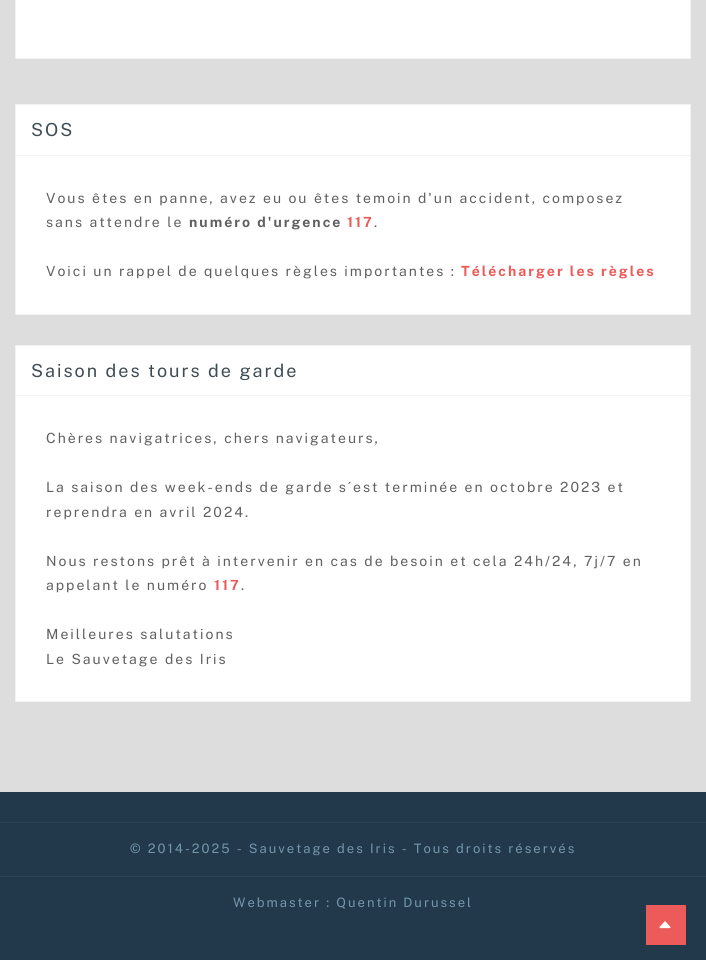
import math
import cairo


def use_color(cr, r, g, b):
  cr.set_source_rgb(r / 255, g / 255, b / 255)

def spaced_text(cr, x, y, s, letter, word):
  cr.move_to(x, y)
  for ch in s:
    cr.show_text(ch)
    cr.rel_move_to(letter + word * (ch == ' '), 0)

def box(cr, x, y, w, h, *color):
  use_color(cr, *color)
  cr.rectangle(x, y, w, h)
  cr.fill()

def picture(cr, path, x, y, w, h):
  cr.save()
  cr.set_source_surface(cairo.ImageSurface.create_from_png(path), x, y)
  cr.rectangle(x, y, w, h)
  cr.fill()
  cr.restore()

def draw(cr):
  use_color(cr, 221, 221, 221)
  cr.paint()
  use_color(cr, 255, 255, 255)
  cr.rectangle(15.5, -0.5, 675, 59)
  cr.fill_preserve()
  use_color(cr, 243, 242, 242)
  cr.set_line_width(1)
  cr.stroke()
  use_color(cr, 255, 255, 255)
  cr.rectangle(15.5, 104.5, 675, 210)
  cr.fill_preserve()
  use_color(cr, 243, 242, 242)
  cr.stroke()
  box(cr, 16, 155, 674, 1, 243, 242, 242)
  use_color(cr, 255, 255, 255)
  cr.rectangle(15.5, 345.5, 675, 356)
  cr.fill_preserve()
  use_color(cr, 243, 242, 242)
  cr.stroke()
  box(cr, 16, 395, 674, 1, 243, 242, 242)
  box(cr, 0, 792, 706, 168, 34, 57, 76)
  box(cr, 0, 822, 706, 1, 45, 67, 85)
  box(cr, 0, 876, 706, 1, 45, 67, 85)
  box(cr, 646, 905, 40, 40, 237, 90, 90)
  picture(cr, "img_01.png", 659, 921, 12, 8)
  cr.select_font_face("Public Sans")
  cr.set_font_size(18)
  use_color(cr, 62, 76, 83)
  spaced_text(cr, 31, 136, "SOS", 2, 0)
  cr.set_font_size(14)
  use_color(cr, 96, 96, 96)
  spaced_text(cr, 46, 203, "Vous êtes en panne, avez eu ou êtes temoin d'un accident, composez", 2, 0)
  spaced_text(cr, 46, 227, "sans attendre le", 2, 0)
  cr.select_font_face("Public Sans", cairo.FONT_SLANT_NORMAL, cairo.FONT_WEIGHT_BOLD)
  spaced_text(cr, 189, 227, "numéro d'urgence", 2, 0)
  use_color(cr, 237, 90, 90)
  spaced_text(cr, 347, 227, "117", 2, 0)
  cr.select_font_face("Public Sans")
  use_color(cr, 96, 96, 96)
  spaced_text(cr, 374, 227, ".", 2, 0)
  spaced_text(cr, 46, 276, "Voici un rappel de quelques règles importantes :", 2, 0)
  cr.select_font_face("Public Sans", cairo.FONT_SLANT_NORMAL, cairo.FONT_WEIGHT_BOLD)
  use_color(cr, 237, 90, 90)
  spaced_text(cr, 461, 276, "Télécharger les règles", 2, 0)
  cr.select_font_face("Public Sans")
  cr.set_font_size(18)
  use_color(cr, 62, 76, 83)
  spaced_text(cr, 31, 377, "Saison des tours de garde", 2, 0)
  cr.set_font_size(14)
  use_color(cr, 96, 96, 96)
  spaced_text(cr, 46, 443, "Chères navigatrices, chers navigateurs,", 2, 0)
  spaced_text(cr, 46, 492, "La saison des week-ends de garde s´est terminée en octobre 2023 et", 2, 0)
  spaced_text(cr, 46, 517, "reprendra en avril 2024.", 2, 0)
  spaced_text(cr, 46, 566, "Nous restons prêt à intervenir en cas de besoin et cela 24h/24, 7j/7 en", 2, 0)
  spaced_text(cr, 46, 590, "appelant le numéro", 2, 0)
  cr.select_font_face("Public Sans", cairo.FONT_SLANT_NORMAL, cairo.FONT_WEIGHT_BOLD)
  use_color(cr, 237, 90, 90)
  spaced_text(cr, 214, 590, "117", 2, 0)
  cr.select_font_face("Public Sans")
  use_color(cr, 96, 96, 96)
  spaced_text(cr, 241, 590, ".", 2, 0)
  spaced_text(cr, 46, 639, "Meilleures salutations", 2, 0)
  spaced_text(cr, 46, 664, "Le Sauvetage des Iris", 2, 0)
  cr.set_font_size(13)
  use_color(cr, 116, 150, 171)
  spaced_text(cr, 130, 853, "© 2014-2025 - Sauvetage des Iris - Tous droits réservés", 2, 0)
  spaced_text(cr, 233, 907, "Webmaster : Quentin Durussel", 2, 0)


surface = cairo.ImageSurface(cairo.FORMAT_RGB24, 706, 960)
cr = cairo.Context(surface)
options = cairo.FontOptions()
options.set_hint_metrics(cairo.HINT_METRICS_OFF)
options.set_hint_style(cairo.HINT_STYLE_NONE)
cr.set_font_options(options)
cr.set_miter_limit(4)
draw(cr)
surface.write_to_png("out.png")
